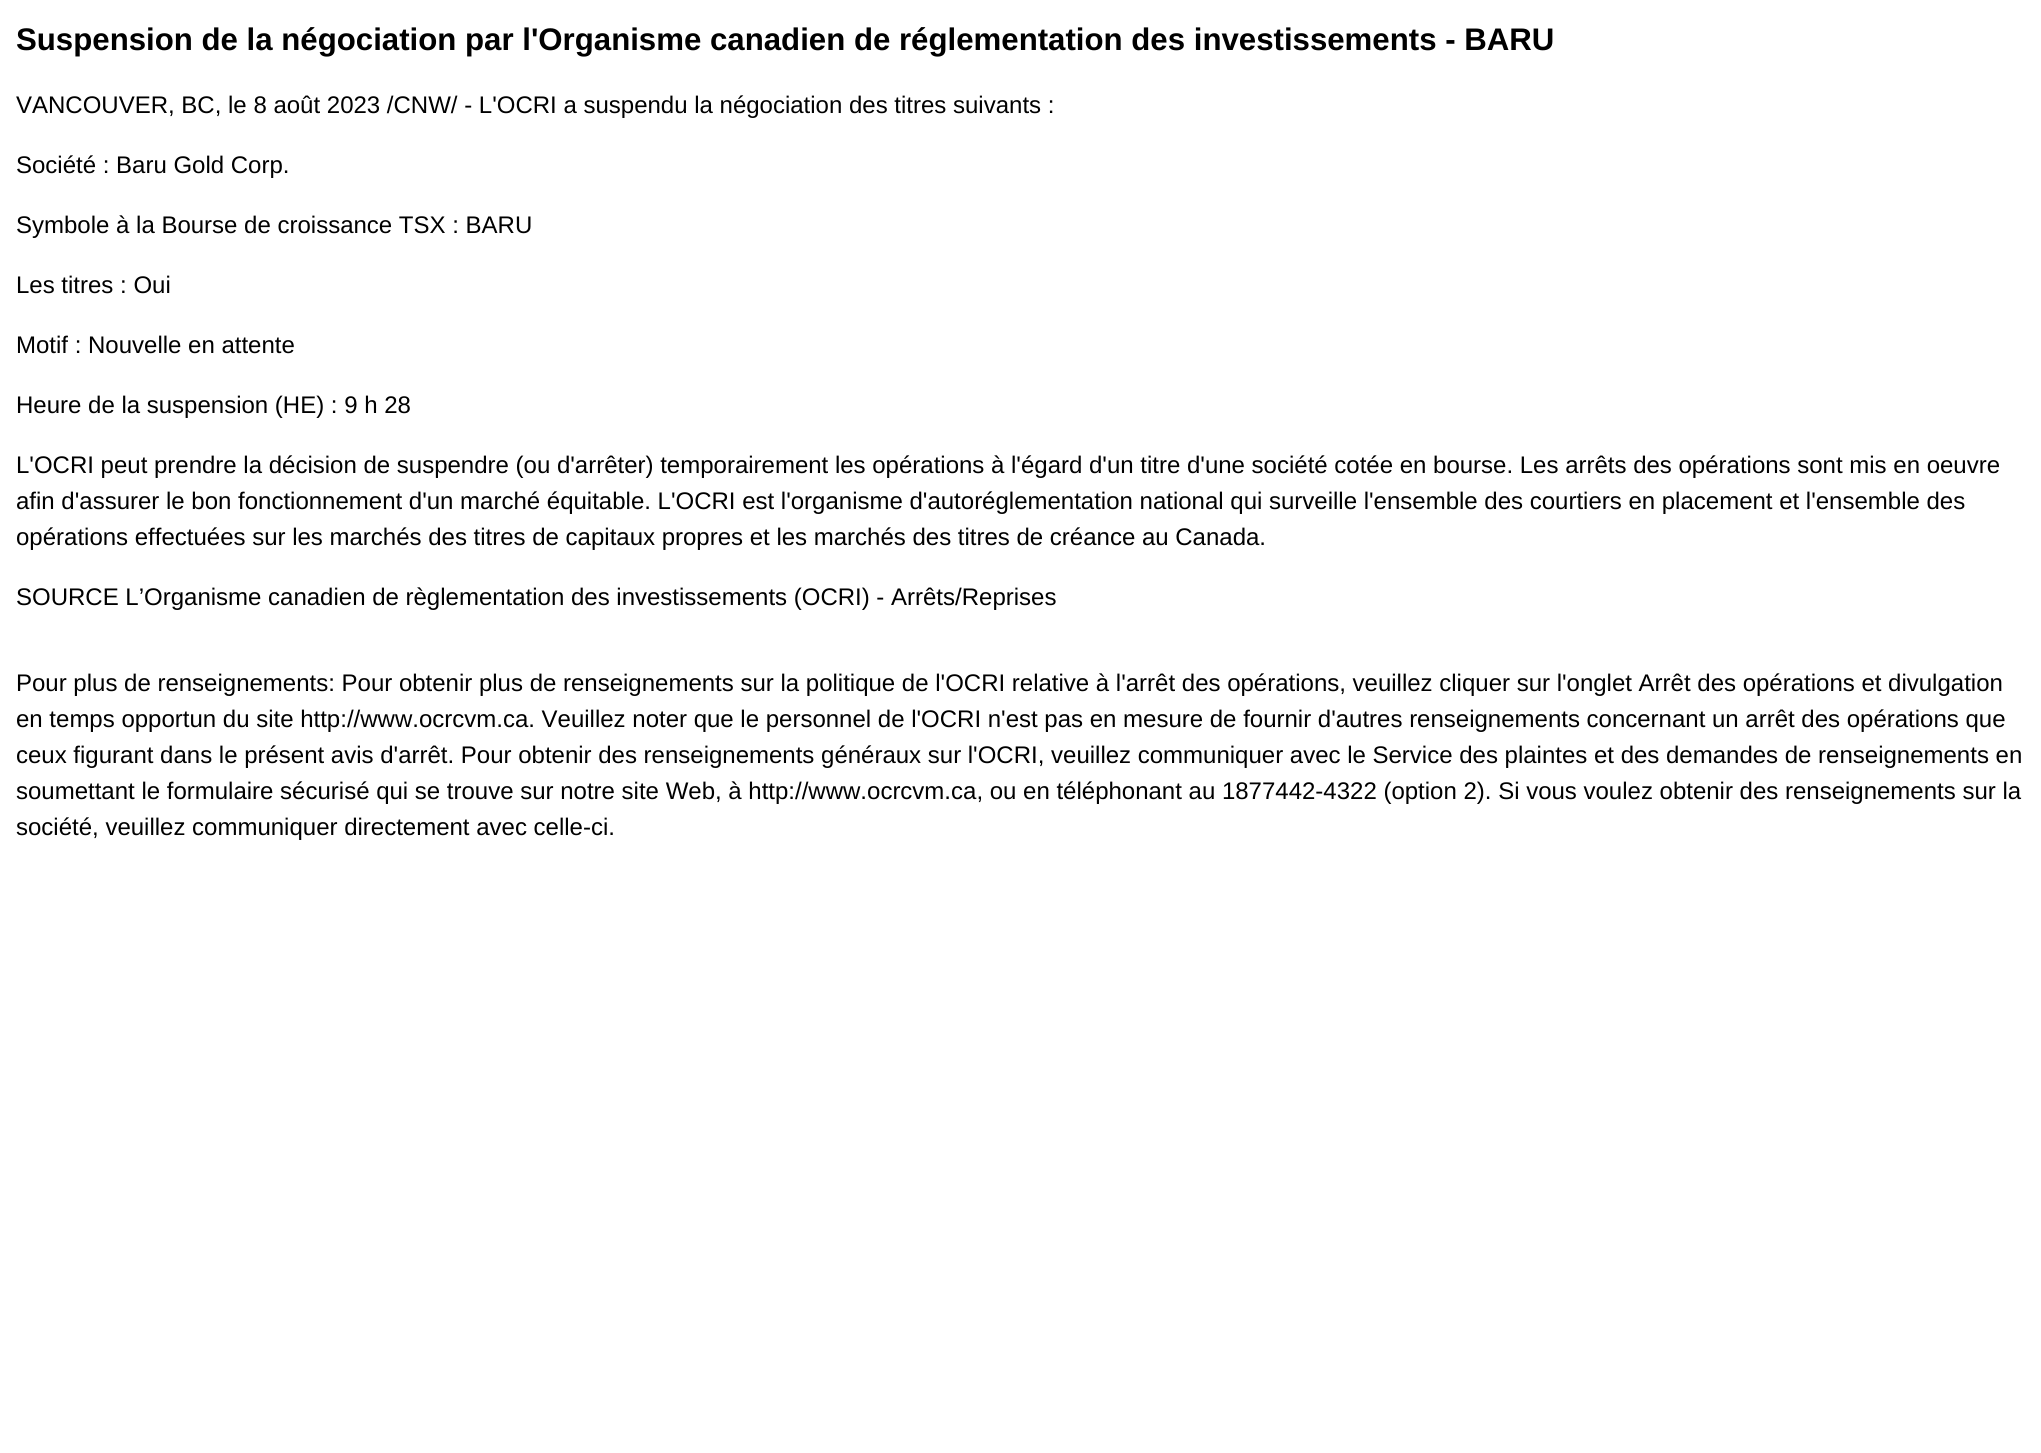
import math
import cairo


def use_color(cr, r, g, b):
  cr.set_source_rgb(r / 255, g / 255, b / 255)

def text(cr, x, y, s, family, size, color, bold=False, italic=False):
  cr.select_font_face(family, cairo.FONT_SLANT_ITALIC if italic else cairo.FONT_SLANT_NORMAL, cairo.FONT_WEIGHT_BOLD if bold else cairo.FONT_WEIGHT_NORMAL)
  cr.set_font_size(size)
  use_color(cr, *color)
  cr.move_to(x, y)
  cr.show_text(s)

def draw(cr):
  use_color(cr, 255, 255, 255)
  cr.paint()
  text(cr, 16, 50, "Suspension de la négociation par l'Organisme canadien de réglementation des investissements - BARU", "Liberation Sans", 31.2, (0, 0, 0), bold=True)
  text(cr, 16, 113, "VANCOUVER, BC, le 8 août 2023 /CNW/ - L'OCRI a suspendu la négociation des titres suivants :", "Liberation Sans", 24, (0, 0, 0))
  text(cr, 16, 173, "Société : Baru Gold Corp.", "Liberation Sans", 24, (0, 0, 0))
  text(cr, 16, 233, "Symbole à la Bourse de croissance TSX : BARU", "Liberation Sans", 24, (0, 0, 0))
  text(cr, 16, 293, "Les titres : Oui", "Liberation Sans", 24, (0, 0, 0))
  text(cr, 16, 353, "Motif : Nouvelle en attente", "Liberation Sans", 24, (0, 0, 0))
  text(cr, 16, 413, "Heure de la suspension (HE) : 9 h 28", "Liberation Sans", 24, (0, 0, 0))
  text(cr, 16, 473, "L'OCRI peut prendre la décision de suspendre (ou d'arrêter) temporairement les opérations à l'égard d'un titre d'une société cotée en bourse. Les arrêts des opérations sont mis en oeuvre", "Liberation Sans", 24, (0, 0, 0))
  text(cr, 16, 509, "afin d'assurer le bon fonctionnement d'un marché équitable. L'OCRI est l'organisme d'autoréglementation national qui surveille l'ensemble des courtiers en placement et l'ensemble des", "Liberation Sans", 24, (0, 0, 0))
  text(cr, 16, 545, "opérations effectuées sur les marchés des titres de capitaux propres et les marchés des titres de créance au Canada.", "Liberation Sans", 24, (0, 0, 0))
  text(cr, 16, 605, "SOURCE L’Organisme canadien de règlementation des investissements (OCRI) - Arrêts/Reprises", "Liberation Sans", 24, (0, 0, 0))
  text(cr, 16, 691, "Pour plus de renseignements: Pour obtenir plus de renseignements sur la politique de l'OCRI relative à l'arrêt des opérations, veuillez cliquer sur l'onglet Arrêt des opérations et divulgation", "Liberation Sans", 24, (0, 0, 0))
  text(cr, 16, 727, "en temps opportun du site http://www.ocrcvm.ca. Veuillez noter que le personnel de l'OCRI n'est pas en mesure de fournir d'autres renseignements concernant un arrêt des opérations que", "Liberation Sans", 24, (0, 0, 0))
  text(cr, 16, 763, "ceux figurant dans le présent avis d'arrêt. Pour obtenir des renseignements généraux sur l'OCRI, veuillez communiquer avec le Service des plaintes et des demandes de renseignements en", "Liberation Sans", 24, (0, 0, 0))
  text(cr, 16, 799, "soumettant le formulaire sécurisé qui se trouve sur notre site Web, à http://www.ocrcvm.ca, ou en téléphonant au 1877442-4322 (option 2). Si vous voulez obtenir des renseignements sur la", "Liberation Sans", 24, (0, 0, 0))
  text(cr, 16, 835, "société, veuillez communiquer directement avec celle-ci.", "Liberation Sans", 24, (0, 0, 0))


surface = cairo.ImageSurface(cairo.FORMAT_RGB24, 2041, 1453)
cr = cairo.Context(surface)
options = cairo.FontOptions()
options.set_hint_metrics(cairo.HINT_METRICS_OFF)
options.set_hint_style(cairo.HINT_STYLE_NONE)
cr.set_font_options(options)
cr.set_miter_limit(4)
draw(cr)
surface.write_to_png("out.png")
